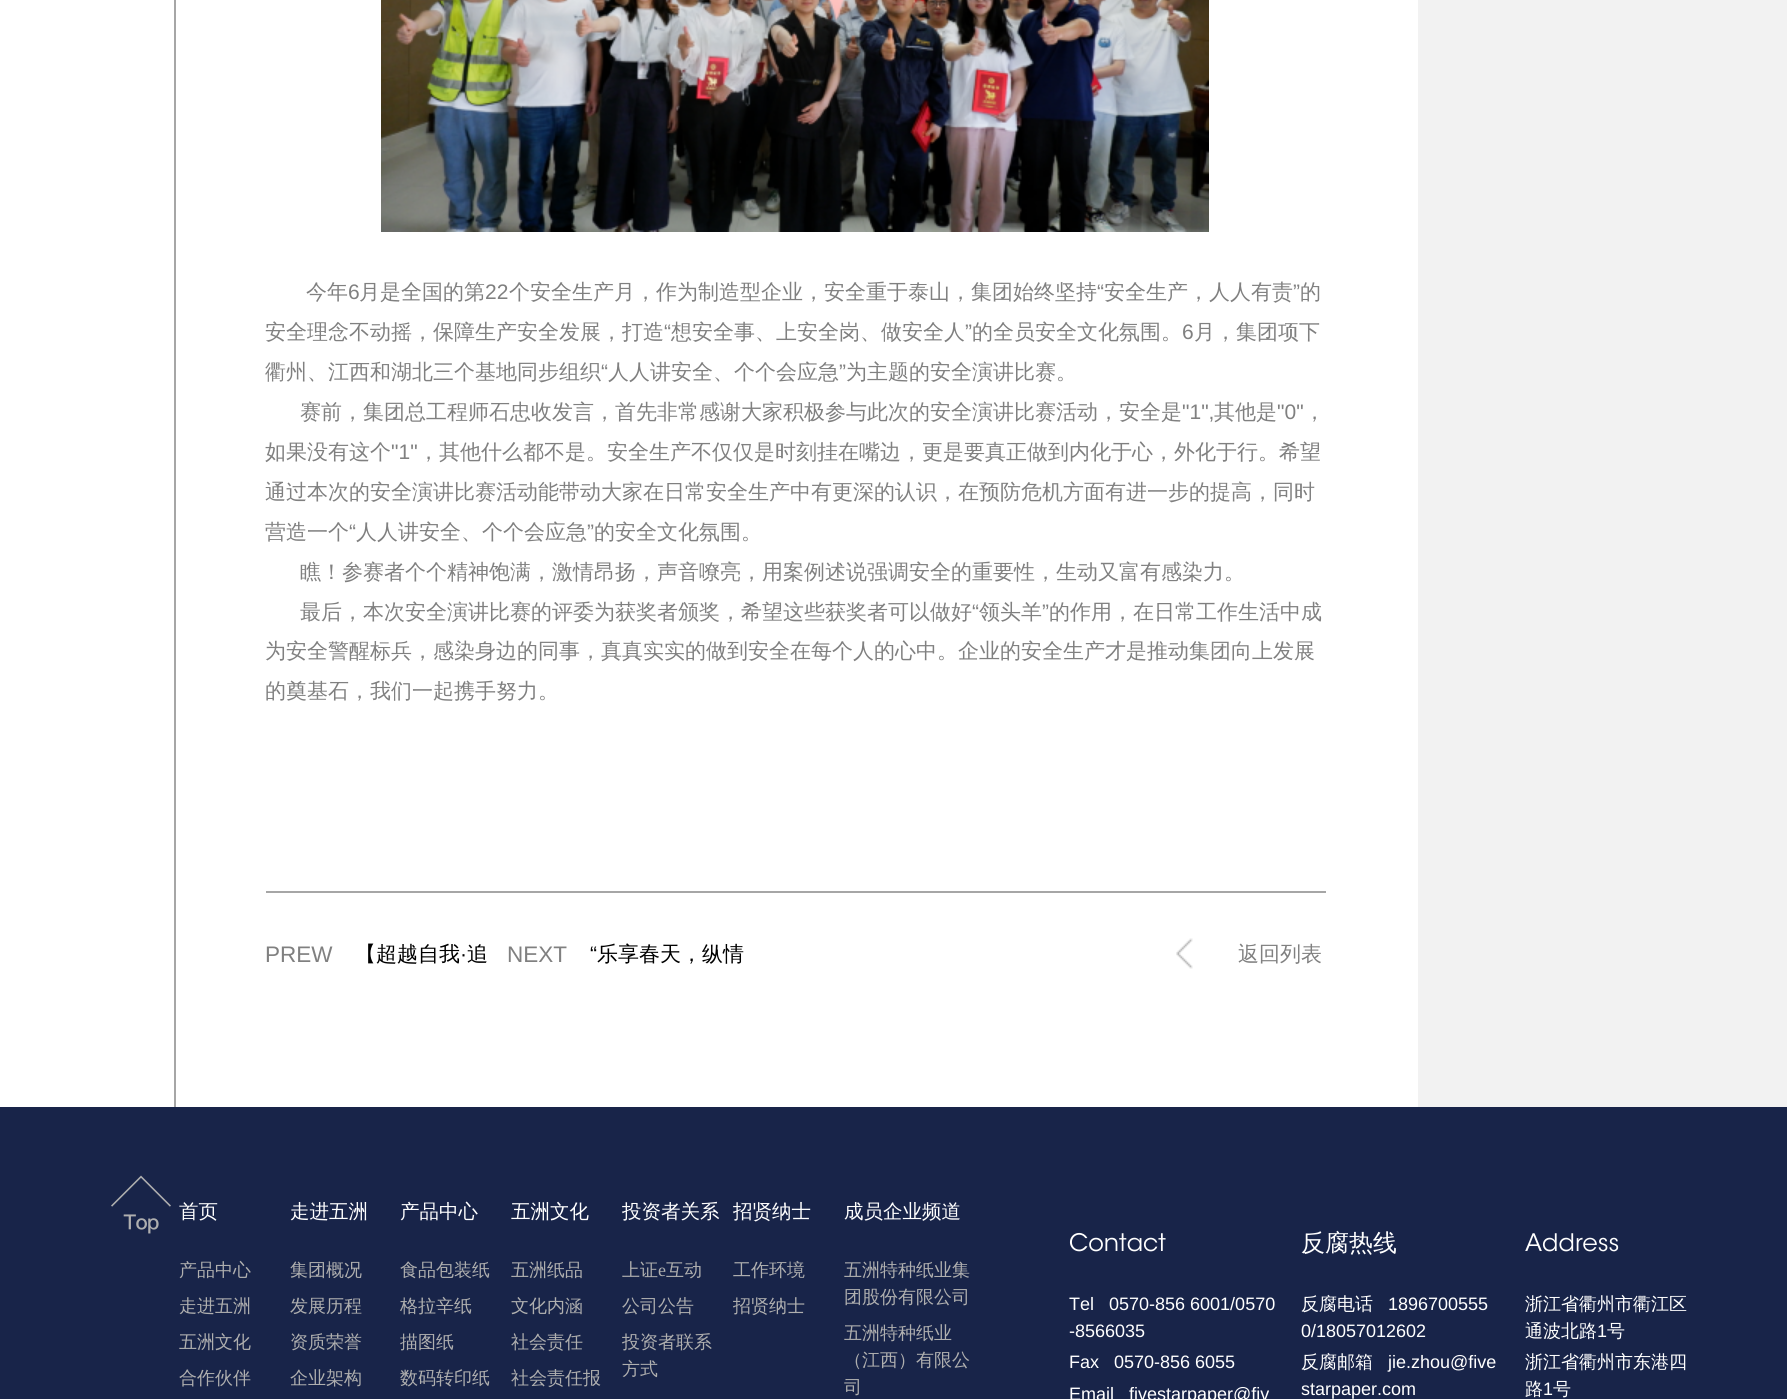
import math
import cairo


def use_color(cr, r, g, b):
  cr.set_source_rgb(r / 255, g / 255, b / 255)

def text(cr, x, y, s, family, size, color, bold=False, italic=False):
  cr.select_font_face(family, cairo.FONT_SLANT_ITALIC if italic else cairo.FONT_SLANT_NORMAL, cairo.FONT_WEIGHT_BOLD if bold else cairo.FONT_WEIGHT_NORMAL)
  cr.set_font_size(size)
  use_color(cr, *color)
  cr.move_to(x, y)
  cr.show_text(s)

def box(cr, x, y, w, h, *color):
  use_color(cr, *color)
  cr.rectangle(x, y, w, h)
  cr.fill()

def picture(cr, path, x, y, w, h):
  cr.save()
  cr.set_source_surface(cairo.ImageSurface.create_from_png(path), x, y)
  cr.rectangle(x, y, w, h)
  cr.fill()
  cr.restore()

def draw(cr):
  use_color(cr, 255, 255, 255)
  cr.paint()
  box(cr, 174, 0, 2, 1107, 166, 166, 166)
  picture(cr, "img_01.png", 381, 0, 828, 232)
  box(cr, 266, 891, 1060, 2, 166, 166, 166)
  picture(cr, "img_02.png", 1176, 938, 17, 31)
  box(cr, 1418, 0, 369, 1107, 242, 242, 242)
  box(cr, 0, 1107, 1787, 292, 24, 36, 73)
  picture(cr, "img_03.png", 111, 1175, 60, 59)
  text(cr, 306, 299, "今年", "WenQuanYi Zen Hei Medium", 21, (128, 128, 128))
  text(cr, 348, 299, "6", "Liberation Sans", 21, (128, 128, 128))
  text(cr, 359, 299, "月是全国的第", "WenQuanYi Zen Hei Medium", 21, (128, 128, 128))
  text(cr, 485, 299, "22", "Liberation Sans", 21, (128, 128, 128))
  text(cr, 509, 299, "个安全生产月，作为制造型企业，安全重于泰山，集团始终坚持", "WenQuanYi Zen Hei Medium", 21, (128, 128, 128))
  text(cr, 1097, 299, "“", "Liberation Sans", 21, (128, 128, 128))
  text(cr, 1104, 299, "安全生产，人人有责", "WenQuanYi Zen Hei Medium", 21, (128, 128, 128))
  text(cr, 1293, 299, "”", "Liberation Sans", 21, (128, 128, 128))
  text(cr, 1300, 299, "的", "WenQuanYi Zen Hei Medium", 21, (128, 128, 128))
  text(cr, 265, 339, "安全理念不动摇，保障生产安全发展，打造", "WenQuanYi Zen Hei Medium", 21, (128, 128, 128))
  text(cr, 664, 339, "“", "Liberation Sans", 21, (128, 128, 128))
  text(cr, 671, 339, "想安全事、上安全岗、做安全人", "WenQuanYi Zen Hei Medium", 21, (128, 128, 128))
  text(cr, 965, 339, "”", "Liberation Sans", 21, (128, 128, 128))
  text(cr, 972, 339, "的全员安全文化氛围。", "WenQuanYi Zen Hei Medium", 21, (128, 128, 128))
  text(cr, 1182, 339, "6", "Liberation Sans", 21, (128, 128, 128))
  text(cr, 1194, 339, "月，集团项下", "WenQuanYi Zen Hei Medium", 21, (128, 128, 128))
  text(cr, 265, 379, "衢州、江西和湖北三个基地同步组织", "WenQuanYi Zen Hei Medium", 21, (128, 128, 128))
  text(cr, 601, 379, "“", "Liberation Sans", 21, (128, 128, 128))
  text(cr, 608, 379, "人人讲安全、个个会应急", "WenQuanYi Zen Hei Medium", 21, (128, 128, 128))
  text(cr, 839, 379, "”", "Liberation Sans", 21, (128, 128, 128))
  text(cr, 846, 379, "为主题的安全演讲比赛。", "WenQuanYi Zen Hei Medium", 21, (128, 128, 128))
  text(cr, 300, 419, "赛前，集团总工程师石忠收发言，首先非常感谢大家积极参与此次的安全演讲比赛活动，安全是", "WenQuanYi Zen Hei Medium", 21, (128, 128, 128))
  text(cr, 1182, 419, "\"1\",", "Liberation Sans", 21, (128, 128, 128))
  text(cr, 1214, 419, "其他是", "WenQuanYi Zen Hei Medium", 21, (128, 128, 128))
  text(cr, 1277, 419, "\"0\"", "Liberation Sans", 21, (128, 128, 128))
  text(cr, 1304, 419, "，", "WenQuanYi Zen Hei Medium", 21, (128, 128, 128))
  text(cr, 265, 459, "如果没有这个", "WenQuanYi Zen Hei Medium", 21, (128, 128, 128))
  text(cr, 391, 459, "\"1\"", "Liberation Sans", 21, (128, 128, 128))
  text(cr, 418, 459, "，其他什么都不是。安全生产不仅仅是时刻挂在嘴边，更是要真正做到内化于心，外化于行。希望", "WenQuanYi Zen Hei Medium", 21, (128, 128, 128))
  text(cr, 265, 499, "通过本次的安全演讲比赛活动能带动大家在日常安全生产中有更深的认识，在预防危机方面有进一步的提高，同时", "WenQuanYi Zen Hei Medium", 21, (128, 128, 128))
  text(cr, 265, 539, "营造一个", "WenQuanYi Zen Hei Medium", 21, (128, 128, 128))
  text(cr, 349, 539, "“", "Liberation Sans", 21, (128, 128, 128))
  text(cr, 356, 539, "人人讲安全、个个会应急", "WenQuanYi Zen Hei Medium", 21, (128, 128, 128))
  text(cr, 587, 539, "”", "Liberation Sans", 21, (128, 128, 128))
  text(cr, 594, 539, "的安全文化氛围。", "WenQuanYi Zen Hei Medium", 21, (128, 128, 128))
  text(cr, 300, 579, "瞧！参赛者个个精神饱满，激情昂扬，声音嘹亮，用案例述说强调安全的重要性，生动又富有感染力。", "WenQuanYi Zen Hei Medium", 21, (128, 128, 128))
  text(cr, 300, 619, "最后，本次安全演讲比赛的评委为获奖者颁奖，希望这些获奖者可以做好", "WenQuanYi Zen Hei Medium", 21, (128, 128, 128))
  text(cr, 972, 619, "“", "Liberation Sans", 21, (128, 128, 128))
  text(cr, 979, 619, "领头羊", "WenQuanYi Zen Hei Medium", 21, (128, 128, 128))
  text(cr, 1042, 619, "”", "Liberation Sans", 21, (128, 128, 128))
  text(cr, 1049, 619, "的作用，在日常工作生活中成", "WenQuanYi Zen Hei Medium", 21, (128, 128, 128))
  text(cr, 265, 658, "为安全警醒标兵，感染身边的同事，真真实实的做到安全在每个人的心中。企业的安全生产才是推动集团向上发展", "WenQuanYi Zen Hei Medium", 21, (128, 128, 128))
  text(cr, 265, 698, "的奠基石，我们一起携手努力。", "WenQuanYi Zen Hei Medium", 21, (128, 128, 128))
  text(cr, 265, 962, "PREW", "Liberation Sans", 22.5, (128, 128, 128))
  text(cr, 355, 961, "【超越自我", "WenQuanYi Zen Hei Medium", 21, (0, 0, 0))
  text(cr, 460, 961, "·", "Liberation Sans", 21, (0, 0, 0))
  text(cr, 467, 961, "追", "WenQuanYi Zen Hei Medium", 21, (0, 0, 0))
  text(cr, 507, 962, "NEXT", "Liberation Sans", 22.5, (128, 128, 128))
  text(cr, 590, 961, "“", "Liberation Sans", 21, (0, 0, 0))
  text(cr, 597, 961, "乐享春天，纵情", "WenQuanYi Zen Hei Medium", 21, (0, 0, 0))
  text(cr, 1238, 961, "返回列表", "WenQuanYi Zen Hei Medium", 21, (128, 128, 128))
  text(cr, 179, 1218, "首页", "WenQuanYi Zen Hei Medium", 19.5, (255, 255, 255))
  text(cr, 179, 1276, "产品中心", "WenQuanYi Zen Hei Medium", 18, (175, 175, 175))
  text(cr, 179, 1312, "走进五洲", "WenQuanYi Zen Hei Medium", 18, (175, 175, 175))
  text(cr, 179, 1348, "五洲文化", "WenQuanYi Zen Hei Medium", 18, (175, 175, 175))
  text(cr, 179, 1384, "合作伙伴", "WenQuanYi Zen Hei Medium", 18, (175, 175, 175))
  text(cr, 290, 1218, "走进五洲", "WenQuanYi Zen Hei Medium", 19.5, (255, 255, 255))
  text(cr, 290, 1276, "集团概况", "WenQuanYi Zen Hei Medium", 18, (175, 175, 175))
  text(cr, 290, 1312, "发展历程", "WenQuanYi Zen Hei Medium", 18, (175, 175, 175))
  text(cr, 290, 1348, "资质荣誉", "WenQuanYi Zen Hei Medium", 18, (175, 175, 175))
  text(cr, 290, 1384, "企业架构", "WenQuanYi Zen Hei Medium", 18, (175, 175, 175))
  text(cr, 400, 1218, "产品中心", "WenQuanYi Zen Hei Medium", 19.5, (255, 255, 255))
  text(cr, 400, 1276, "食品包装纸", "WenQuanYi Zen Hei Medium", 18, (175, 175, 175))
  text(cr, 400, 1312, "格拉辛纸", "WenQuanYi Zen Hei Medium", 18, (175, 175, 175))
  text(cr, 400, 1348, "描图纸", "WenQuanYi Zen Hei Medium", 18, (175, 175, 175))
  text(cr, 400, 1384, "数码转印纸", "WenQuanYi Zen Hei Medium", 18, (175, 175, 175))
  text(cr, 511, 1218, "五洲文化", "WenQuanYi Zen Hei Medium", 19.5, (255, 255, 255))
  text(cr, 511, 1276, "五洲纸品", "WenQuanYi Zen Hei Medium", 18, (175, 175, 175))
  text(cr, 511, 1312, "文化内涵", "WenQuanYi Zen Hei Medium", 18, (175, 175, 175))
  text(cr, 511, 1348, "社会责任", "WenQuanYi Zen Hei Medium", 18, (175, 175, 175))
  text(cr, 511, 1384, "社会责任报", "WenQuanYi Zen Hei Medium", 18, (175, 175, 175))
  text(cr, 622, 1218, "投资者关系", "WenQuanYi Zen Hei Medium", 19.5, (255, 255, 255))
  text(cr, 622, 1276, "上证", "WenQuanYi Zen Hei Medium", 18, (175, 175, 175))
  text(cr, 658, 1276, "e", "Liberation Serif", 18, (175, 175, 175))
  text(cr, 666, 1276, "互动", "WenQuanYi Zen Hei Medium", 18, (175, 175, 175))
  text(cr, 622, 1312, "公司公告", "WenQuanYi Zen Hei Medium", 18, (175, 175, 175))
  text(cr, 622, 1348, "投资者联系", "WenQuanYi Zen Hei Medium", 18, (175, 175, 175))
  text(cr, 622, 1375, "方式", "WenQuanYi Zen Hei Medium", 18, (175, 175, 175))
  text(cr, 733, 1218, "招贤纳士", "WenQuanYi Zen Hei Medium", 19.5, (255, 255, 255))
  text(cr, 733, 1276, "工作环境", "WenQuanYi Zen Hei Medium", 18, (175, 175, 175))
  text(cr, 733, 1312, "招贤纳士", "WenQuanYi Zen Hei Medium", 18, (175, 175, 175))
  text(cr, 844, 1218, "成员企业频道", "WenQuanYi Zen Hei Medium", 19.5, (255, 255, 255))
  text(cr, 844, 1276, "五洲特种纸业集", "WenQuanYi Zen Hei Medium", 18, (175, 175, 175))
  text(cr, 844, 1303, "团股份有限公司", "WenQuanYi Zen Hei Medium", 18, (175, 175, 175))
  text(cr, 844, 1339, "五洲特种纸业", "WenQuanYi Zen Hei Medium", 18, (175, 175, 175))
  text(cr, 844, 1366, "（江西）有限公", "WenQuanYi Zen Hei Medium", 18, (175, 175, 175))
  text(cr, 844, 1393, "司", "WenQuanYi Zen Hei Medium", 18, (175, 175, 175))
  text(cr, 1069, 1251, "Contact", "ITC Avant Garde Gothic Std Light", 24, (255, 255, 255))
  text(cr, 1069, 1310, "Tel", "Liberation Sans", 18, (255, 255, 255))
  text(cr, 1109, 1310, "0570-856 6001/0570", "Liberation Sans", 18, (255, 255, 255))
  text(cr, 1069, 1337, "-8566035", "Liberation Sans", 18, (255, 255, 255))
  text(cr, 1069, 1368, "Fax", "Liberation Sans", 18, (255, 255, 255))
  text(cr, 1114, 1368, "0570-856 6055", "Liberation Sans", 18, (255, 255, 255))
  text(cr, 1069, 1400, "Email", "Liberation Sans", 18, (255, 255, 255))
  text(cr, 1129, 1400, "fivestarpaper@fiv", "Liberation Sans", 18, (255, 255, 255))
  text(cr, 1301, 1251, "反腐热线", "WenQuanYi Zen Hei Medium", 24, (255, 255, 255))
  text(cr, 1301, 1310, "反腐电话", "WenQuanYi Zen Hei Medium", 18, (255, 255, 255))
  text(cr, 1388, 1310, "1896700555", "Liberation Sans", 18, (255, 255, 255))
  text(cr, 1301, 1337, "0/18057012602", "Liberation Sans", 18, (255, 255, 255))
  text(cr, 1301, 1368, "反腐邮箱", "WenQuanYi Zen Hei Medium", 18, (255, 255, 255))
  text(cr, 1388, 1368, "jie.zhou@five", "Liberation Sans", 18, (255, 255, 255))
  text(cr, 1301, 1395, "starpaper.com", "Liberation Sans", 18, (255, 255, 255))
  text(cr, 1525, 1251, "Address", "ITC Avant Garde Gothic Std Light", 24, (255, 255, 255))
  text(cr, 1525, 1310, "浙江省衢州市衢江区", "WenQuanYi Zen Hei Medium", 18, (255, 255, 255))
  text(cr, 1525, 1337, "通波北路", "WenQuanYi Zen Hei Medium", 18, (255, 255, 255))
  text(cr, 1597, 1337, "1", "Liberation Sans", 18, (255, 255, 255))
  text(cr, 1607, 1337, "号", "WenQuanYi Zen Hei Medium", 18, (255, 255, 255))
  text(cr, 1525, 1368, "浙江省衢州市东港四", "WenQuanYi Zen Hei Medium", 18, (255, 255, 255))
  text(cr, 1525, 1395, "路", "WenQuanYi Zen Hei Medium", 18, (255, 255, 255))
  text(cr, 1543, 1395, "1", "Liberation Sans", 18, (255, 255, 255))
  text(cr, 1553, 1395, "号", "WenQuanYi Zen Hei Medium", 18, (255, 255, 255))


surface = cairo.ImageSurface(cairo.FORMAT_RGB24, 1787, 1399)
cr = cairo.Context(surface)
options = cairo.FontOptions()
options.set_hint_metrics(cairo.HINT_METRICS_OFF)
options.set_hint_style(cairo.HINT_STYLE_NONE)
cr.set_font_options(options)
cr.set_miter_limit(4)
draw(cr)
surface.write_to_png("out.png")
